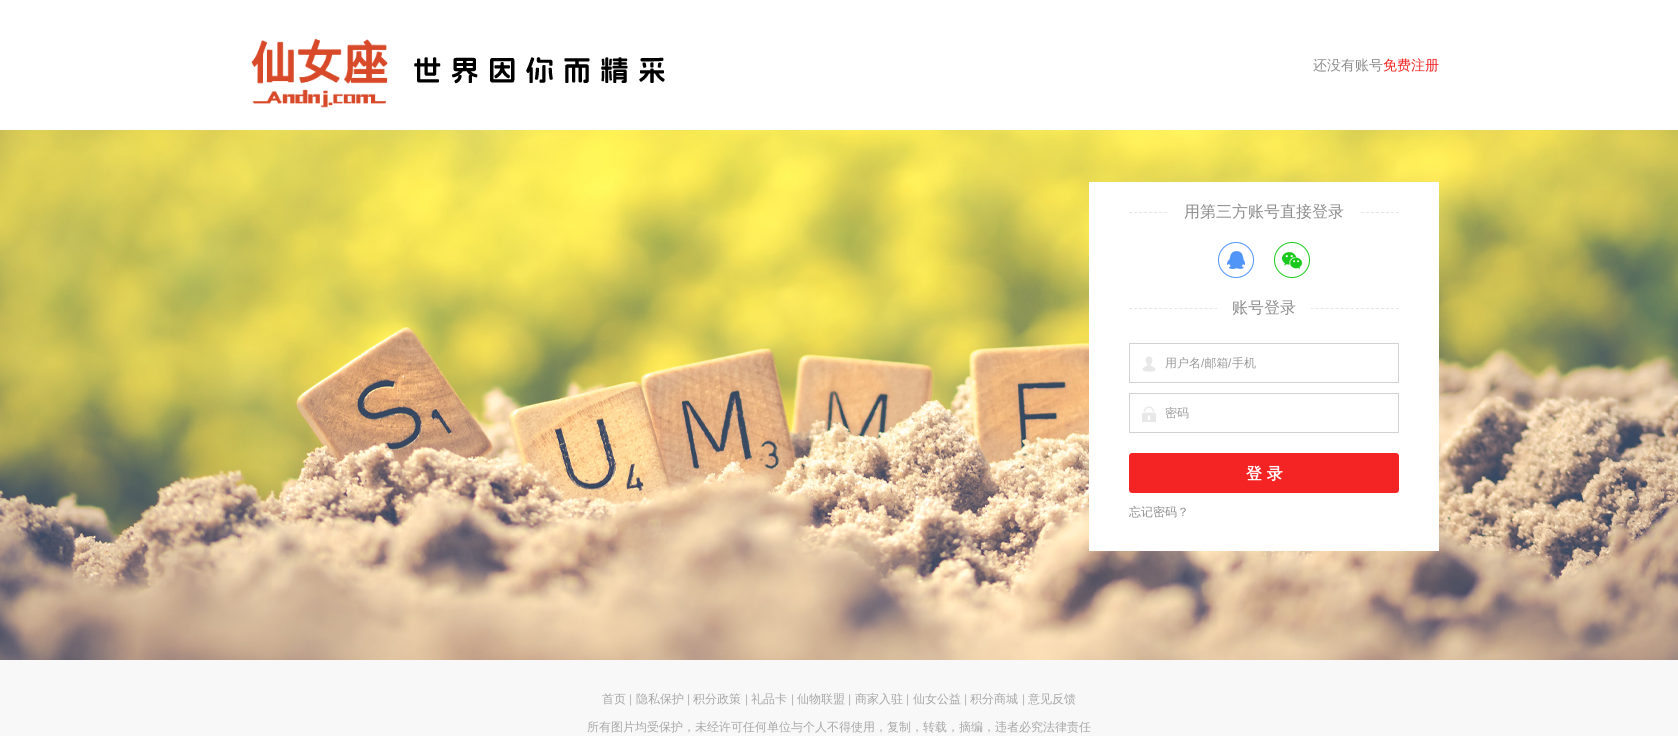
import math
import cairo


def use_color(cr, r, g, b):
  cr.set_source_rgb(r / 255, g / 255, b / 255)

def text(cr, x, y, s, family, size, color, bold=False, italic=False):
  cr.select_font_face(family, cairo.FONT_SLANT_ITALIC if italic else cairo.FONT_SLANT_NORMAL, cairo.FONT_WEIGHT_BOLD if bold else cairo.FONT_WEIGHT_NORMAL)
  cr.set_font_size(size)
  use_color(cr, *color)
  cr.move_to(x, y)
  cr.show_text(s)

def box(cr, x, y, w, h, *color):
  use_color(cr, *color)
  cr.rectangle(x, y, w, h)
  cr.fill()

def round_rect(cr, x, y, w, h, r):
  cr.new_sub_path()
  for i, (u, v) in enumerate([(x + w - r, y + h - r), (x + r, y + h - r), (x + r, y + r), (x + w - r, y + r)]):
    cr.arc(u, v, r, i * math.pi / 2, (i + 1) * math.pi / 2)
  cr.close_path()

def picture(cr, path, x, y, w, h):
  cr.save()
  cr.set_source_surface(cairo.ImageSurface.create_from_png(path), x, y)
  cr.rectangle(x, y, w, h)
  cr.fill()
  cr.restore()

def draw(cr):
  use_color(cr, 255, 255, 255)
  cr.paint()
  picture(cr, "img_01.png", 251, 38, 137, 70)
  picture(cr, "img_02.png", 414, 57, 251, 27)
  picture(cr, "img_03.png", 0, 130, 1678, 530)
  box(cr, 1089, 182, 350, 369, 255, 255, 255)
  cr.new_path()
  cr.move_to(1129, 212.5)
  cr.line_to(1399, 212.5)
  use_color(cr, 229, 229, 229)
  cr.set_line_width(1)
  cr.set_dash([3, 2.04])
  cr.stroke()
  box(cr, 1169, 212, 190, 1, 255, 255, 255)
  picture(cr, "img_04.png", 1218, 242, 36, 36)
  picture(cr, "img_05.png", 1274, 242, 36, 36)
  cr.new_path()
  cr.move_to(1129, 308.5)
  cr.line_to(1399, 308.5)
  use_color(cr, 229, 229, 229)
  cr.stroke()
  box(cr, 1217, 308, 94, 1, 255, 255, 255)
  cr.rectangle(1129.5, 343.5, 269, 39)
  use_color(cr, 210, 210, 210)
  cr.set_dash([])
  cr.stroke()
  picture(cr, "img_06.png", 1142, 356, 14, 16)
  cr.rectangle(1129.5, 393.5, 269, 39)
  cr.stroke()
  picture(cr, "img_07.png", 1142, 406, 14, 16)
  use_color(cr, 244, 36, 36)
  round_rect(cr, 1129, 453, 270, 40, 3)
  cr.fill()
  box(cr, 0, 660, 1678, 76, 248, 248, 248)
  text(cr, 1313, 70, "还没有账号", "WenQuanYi Zen Hei Medium", 14, (140, 140, 140))
  text(cr, 1383, 70, "免费注册", "WenQuanYi Zen Hei Medium", 14, (244, 36, 36))
  text(cr, 1184, 217, "用第三方账号直接登录", "WenQuanYi Zen Hei Medium", 16, (140, 140, 140))
  text(cr, 1232, 313, "账号登录", "WenQuanYi Zen Hei Medium", 16, (140, 140, 140))
  text(cr, 1165, 367, "用户名 邮箱", "WenQuanYi Zen Hei Medium", 12, (153, 153, 153))
  text(cr, 1201, 367, "/", "Liberation Sans", 12, (153, 153, 153))
  text(cr, 1228, 367, "/", "Liberation Sans", 12, (153, 153, 153))
  text(cr, 1232, 367, "手机", "WenQuanYi Zen Hei Medium", 12, (153, 153, 153))
  text(cr, 1165, 417, "密码", "WenQuanYi Zen Hei Medium", 12, (153, 153, 153))
  text(cr, 1246, 479, "登 录", "WenQuanYi Zen Hei", 16, (255, 255, 255), bold=True)
  text(cr, 1129, 516, "忘记密码？", "WenQuanYi Zen Hei Medium", 12, (140, 140, 140))
  text(cr, 602, 703, "首页", "WenQuanYi Zen Hei Medium", 12, (167, 167, 167))
  text(cr, 629, 703, "|", "Liberation Sans", 12, (181, 181, 181))
  text(cr, 636, 703, "隐私保护", "WenQuanYi Zen Hei Medium", 12, (167, 167, 167))
  text(cr, 687, 703, "|", "Liberation Sans", 12, (181, 181, 181))
  text(cr, 693, 703, "积分政策", "WenQuanYi Zen Hei Medium", 12, (167, 167, 167))
  text(cr, 745, 703, "|", "Liberation Sans", 12, (181, 181, 181))
  text(cr, 751, 703, "礼品卡", "WenQuanYi Zen Hei Medium", 12, (167, 167, 167))
  text(cr, 791, 703, "|", "Liberation Sans", 12, (181, 181, 181))
  text(cr, 797, 703, "仙物联盟", "WenQuanYi Zen Hei Medium", 12, (167, 167, 167))
  text(cr, 848, 703, "|", "Liberation Sans", 12, (181, 181, 181))
  text(cr, 855, 703, "商家入驻", "WenQuanYi Zen Hei Medium", 12, (167, 167, 167))
  text(cr, 906, 703, "|", "Liberation Sans", 12, (181, 181, 181))
  text(cr, 913, 703, "仙女公益", "WenQuanYi Zen Hei Medium", 12, (167, 167, 167))
  text(cr, 964, 703, "|", "Liberation Sans", 12, (181, 181, 181))
  text(cr, 970, 703, "积分商城", "WenQuanYi Zen Hei Medium", 12, (167, 167, 167))
  text(cr, 1022, 703, "|", "Liberation Sans", 12, (181, 181, 181))
  text(cr, 1028, 703, "意见反馈", "WenQuanYi Zen Hei Medium", 12, (167, 167, 167))
  text(cr, 587, 731, "所有图片均受保护，未经许可任何单位与个人不得使用，复制，转载，摘编，违者必究法律责任", "WenQuanYi Zen Hei Medium", 12, (167, 167, 167))


surface = cairo.ImageSurface(cairo.FORMAT_RGB24, 1678, 736)
cr = cairo.Context(surface)
options = cairo.FontOptions()
options.set_hint_metrics(cairo.HINT_METRICS_OFF)
options.set_hint_style(cairo.HINT_STYLE_NONE)
cr.set_font_options(options)
cr.set_miter_limit(4)
draw(cr)
surface.write_to_png("out.png")
